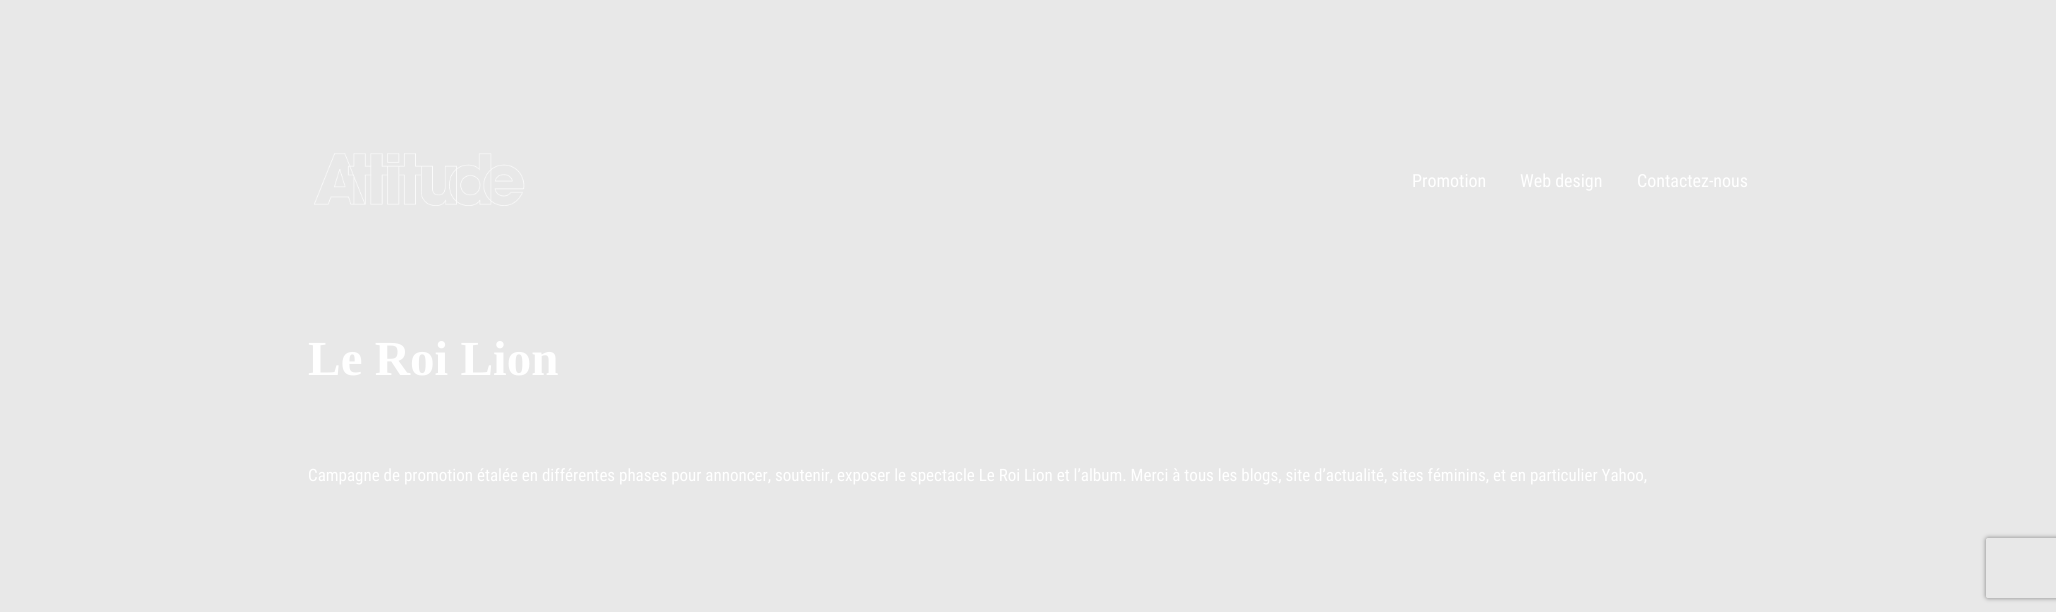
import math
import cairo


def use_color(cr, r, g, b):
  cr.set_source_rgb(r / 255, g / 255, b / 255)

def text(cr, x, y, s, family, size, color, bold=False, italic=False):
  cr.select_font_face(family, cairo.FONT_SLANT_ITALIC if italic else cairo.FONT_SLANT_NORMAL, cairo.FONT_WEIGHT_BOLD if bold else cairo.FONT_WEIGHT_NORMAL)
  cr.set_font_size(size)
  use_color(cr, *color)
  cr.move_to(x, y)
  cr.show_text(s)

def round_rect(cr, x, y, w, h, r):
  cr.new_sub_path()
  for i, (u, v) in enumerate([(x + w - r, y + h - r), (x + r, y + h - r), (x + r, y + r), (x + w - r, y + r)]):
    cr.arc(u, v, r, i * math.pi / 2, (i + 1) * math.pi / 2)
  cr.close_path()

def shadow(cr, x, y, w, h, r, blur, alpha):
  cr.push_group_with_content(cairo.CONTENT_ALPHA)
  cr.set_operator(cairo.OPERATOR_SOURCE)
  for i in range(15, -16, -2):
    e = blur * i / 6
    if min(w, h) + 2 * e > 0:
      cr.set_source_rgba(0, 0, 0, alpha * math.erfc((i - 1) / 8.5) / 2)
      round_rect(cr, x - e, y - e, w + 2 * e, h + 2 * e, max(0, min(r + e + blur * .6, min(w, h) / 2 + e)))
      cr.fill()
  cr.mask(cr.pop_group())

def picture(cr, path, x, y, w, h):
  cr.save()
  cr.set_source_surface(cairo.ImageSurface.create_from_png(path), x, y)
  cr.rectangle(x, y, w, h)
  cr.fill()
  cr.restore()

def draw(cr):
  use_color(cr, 232, 232, 232)
  cr.paint()
  picture(cr, "img_01.png", 314, 153, 211, 53)
  cr.save()
  cr.set_fill_rule(cairo.FILL_RULE_EVEN_ODD)
  cr.new_path()
  cr.move_to(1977, 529)
  cr.line_to(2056, 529)
  cr.line_to(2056, 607)
  cr.line_to(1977, 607)
  cr.close_path()
  cr.move_to(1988, 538)
  cr.line_to(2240, 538)
  cr.curve_to(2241, 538, 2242, 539, 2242, 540)
  cr.line_to(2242, 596)
  cr.curve_to(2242, 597, 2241, 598, 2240, 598)
  cr.line_to(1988, 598)
  cr.curve_to(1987, 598, 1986, 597, 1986, 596)
  cr.line_to(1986, 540)
  cr.curve_to(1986, 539, 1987, 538, 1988, 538)
  cr.close_path()
  cr.clip()
  use_color(cr, 128, 128, 128)
  shadow(cr, 1986, 538, 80, 60, 2, 2.5, 1)
  cr.restore()
  text(cr, 1412, 187, "Promotion", "Roboto Condensed", 18, (255, 255, 255))
  text(cr, 1520, 187, "Web design", "Roboto Condensed", 18, (255, 255, 255))
  text(cr, 1637, 187, "Contactez-nous", "Roboto Condensed", 18, (255, 255, 255))
  text(cr, 308, 375, "Le Roi Lion", "Liberation Serif", 49, (255, 255, 255), bold=True)
  text(cr, 308, 481, "Campagne de promotion étalée en différentes phases pour annoncer, soutenir, exposer le spectacle Le Roi Lion et l’album. Merci à tous les blogs, site d’actualité, sites féminins, et en particulier Yahoo,", "Roboto Condensed", 17, (255, 255, 255))


surface = cairo.ImageSurface(cairo.FORMAT_RGB24, 2056, 612)
cr = cairo.Context(surface)
options = cairo.FontOptions()
options.set_hint_metrics(cairo.HINT_METRICS_OFF)
options.set_hint_style(cairo.HINT_STYLE_NONE)
cr.set_font_options(options)
cr.set_miter_limit(4)
draw(cr)
surface.write_to_png("out.png")
